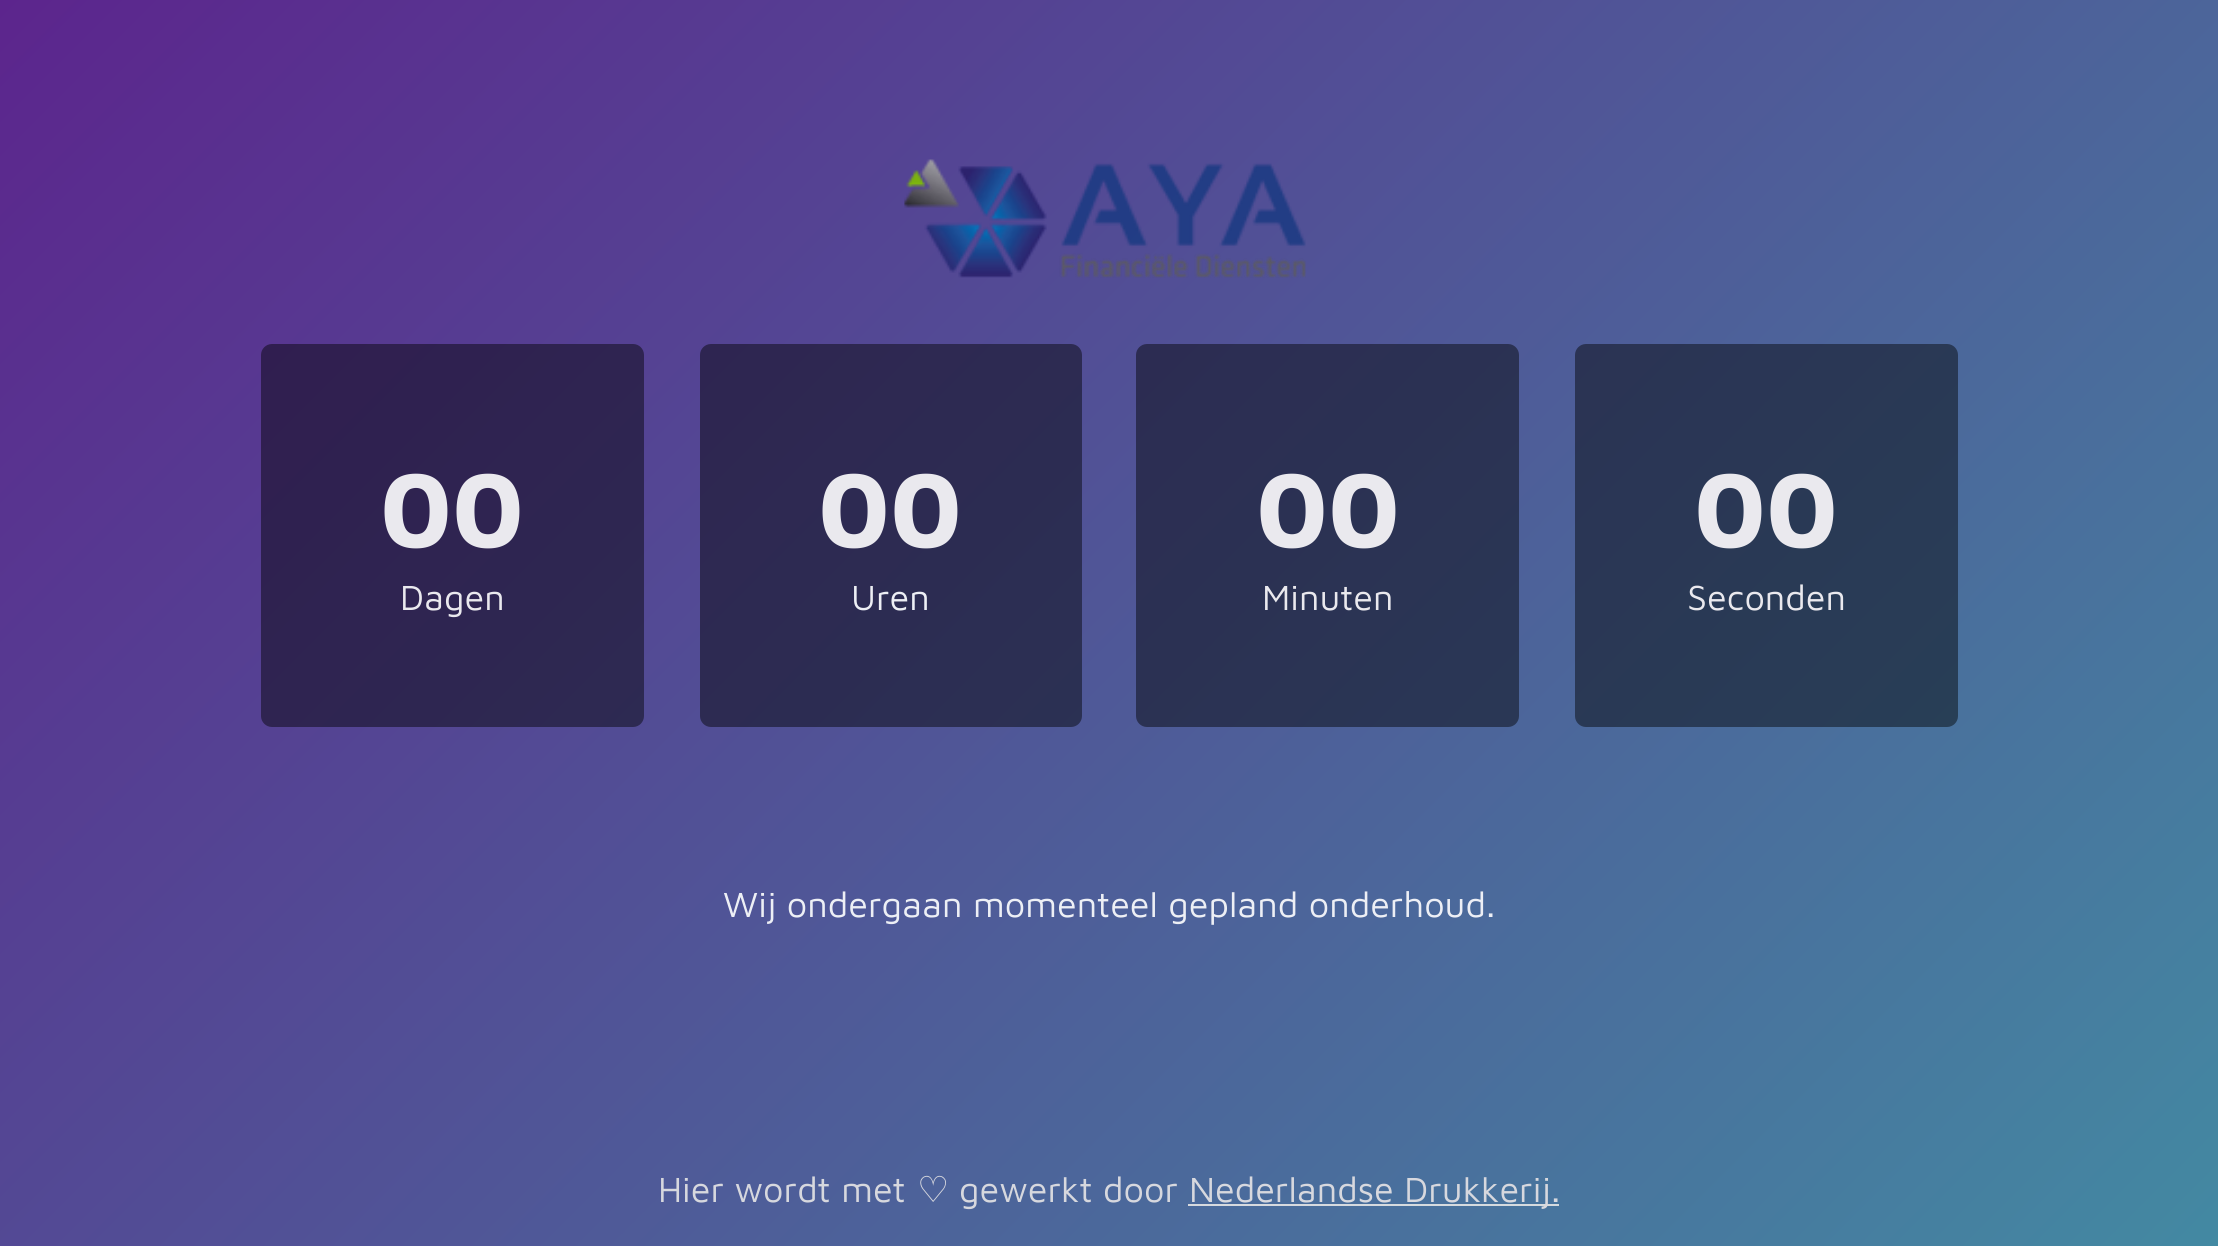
import math
import cairo


def use_color(cr, r, g, b):
  cr.set_source_rgb(r / 255, g / 255, b / 255)

def text(cr, x, y, s, family, size, color, bold=False, italic=False):
  cr.select_font_face(family, cairo.FONT_SLANT_ITALIC if italic else cairo.FONT_SLANT_NORMAL, cairo.FONT_WEIGHT_BOLD if bold else cairo.FONT_WEIGHT_NORMAL)
  cr.set_font_size(size)
  use_color(cr, *color)
  cr.move_to(x, y)
  cr.show_text(s)

def round_rect(cr, x, y, w, h, r):
  cr.new_sub_path()
  for i, (u, v) in enumerate([(x + w - r, y + h - r), (x + r, y + h - r), (x + r, y + r), (x + w - r, y + r)]):
    cr.arc(u, v, r, i * math.pi / 2, (i + 1) * math.pi / 2)
  cr.close_path()

def picture(cr, path, x, y, w, h):
  cr.save()
  cr.set_source_surface(cairo.ImageSurface.create_from_png(path), x, y)
  cr.rectangle(x, y, w, h)
  cr.fill()
  cr.restore()

def draw(cr):
  use_color(cr, 255, 255, 255)
  cr.paint()
  gradient = cairo.LinearGradient(243, -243, 1976, 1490)
  gradient.add_color_stop_rgba(0, 0.361, 0.145, 0.553, 1)
  gradient.add_color_stop_rgba(1, 0.263, 0.537, 0.635, 1)
  cr.set_source(gradient)
  cr.rectangle(0, 0, 2218, 1246)
  cr.fill()
  gradient = cairo.LinearGradient(243, -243, 1976, 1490)
  gradient.add_color_stop_rgba(0, 0.847, 0.827, 0.867, 1)
  gradient.add_color_stop_rgba(1, 0.839, 0.867, 0.875, 1)
  cr.set_source(gradient)
  cr.rectangle(1188, 1204, 371, 2)
  cr.fill()
  picture(cr, "img_01.png", 904, 159, 402, 119)
  cr.set_source_rgba(0, 0, 0, 0.45)
  round_rect(cr, 261, 344, 383, 383, 11)
  cr.fill()
  round_rect(cr, 700, 344, 382, 383, 11)
  cr.fill()
  round_rect(cr, 1136, 344, 383, 383, 11)
  cr.fill()
  round_rect(cr, 1575, 344, 383, 383, 11)
  cr.fill()
  text(cr, 380, 547, "00", "Maven Pro", 108, (234, 233, 238), bold=True)
  text(cr, 400, 610, "Dagen", "Maven Pro", 36, (234, 233, 238))
  text(cr, 818, 547, "00", "Maven Pro", 108, (234, 233, 238), bold=True)
  text(cr, 851, 610, "Uren", "Maven Pro", 36, (237, 239, 245))
  text(cr, 1256, 547, "00", "Maven Pro", 108, (234, 233, 238), bold=True)
  text(cr, 1262, 610, "Minuten", "Maven Pro", 36, (234, 233, 238))
  text(cr, 1694, 547, "00", "Maven Pro", 108, (234, 233, 238), bold=True)
  text(cr, 1687, 610, "Seconden", "Maven Pro", 36, (234, 233, 238))
  text(cr, 723, 917, "Wij ondergaan momenteel gepland onderhoud.", "Maven Pro", 36, (237, 239, 245))
  text(cr, 658, 1202, "Hier wordt met", "Maven Pro", 36, (215, 216, 222))
  text(cr, 917, 1202, "♡", "DejaVu Sans", 36, (215, 216, 222))
  text(cr, 959, 1202, "gewerkt door", "Maven Pro", 36, (215, 216, 222))
  text(cr, 1189, 1202, "Nederlandse Drukkerij.", "Maven Pro", 36, (215, 216, 222))


surface = cairo.ImageSurface(cairo.FORMAT_RGB24, 2218, 1246)
cr = cairo.Context(surface)
options = cairo.FontOptions()
options.set_hint_metrics(cairo.HINT_METRICS_OFF)
options.set_hint_style(cairo.HINT_STYLE_NONE)
cr.set_font_options(options)
cr.set_miter_limit(4)
draw(cr)
surface.write_to_png("out.png")
